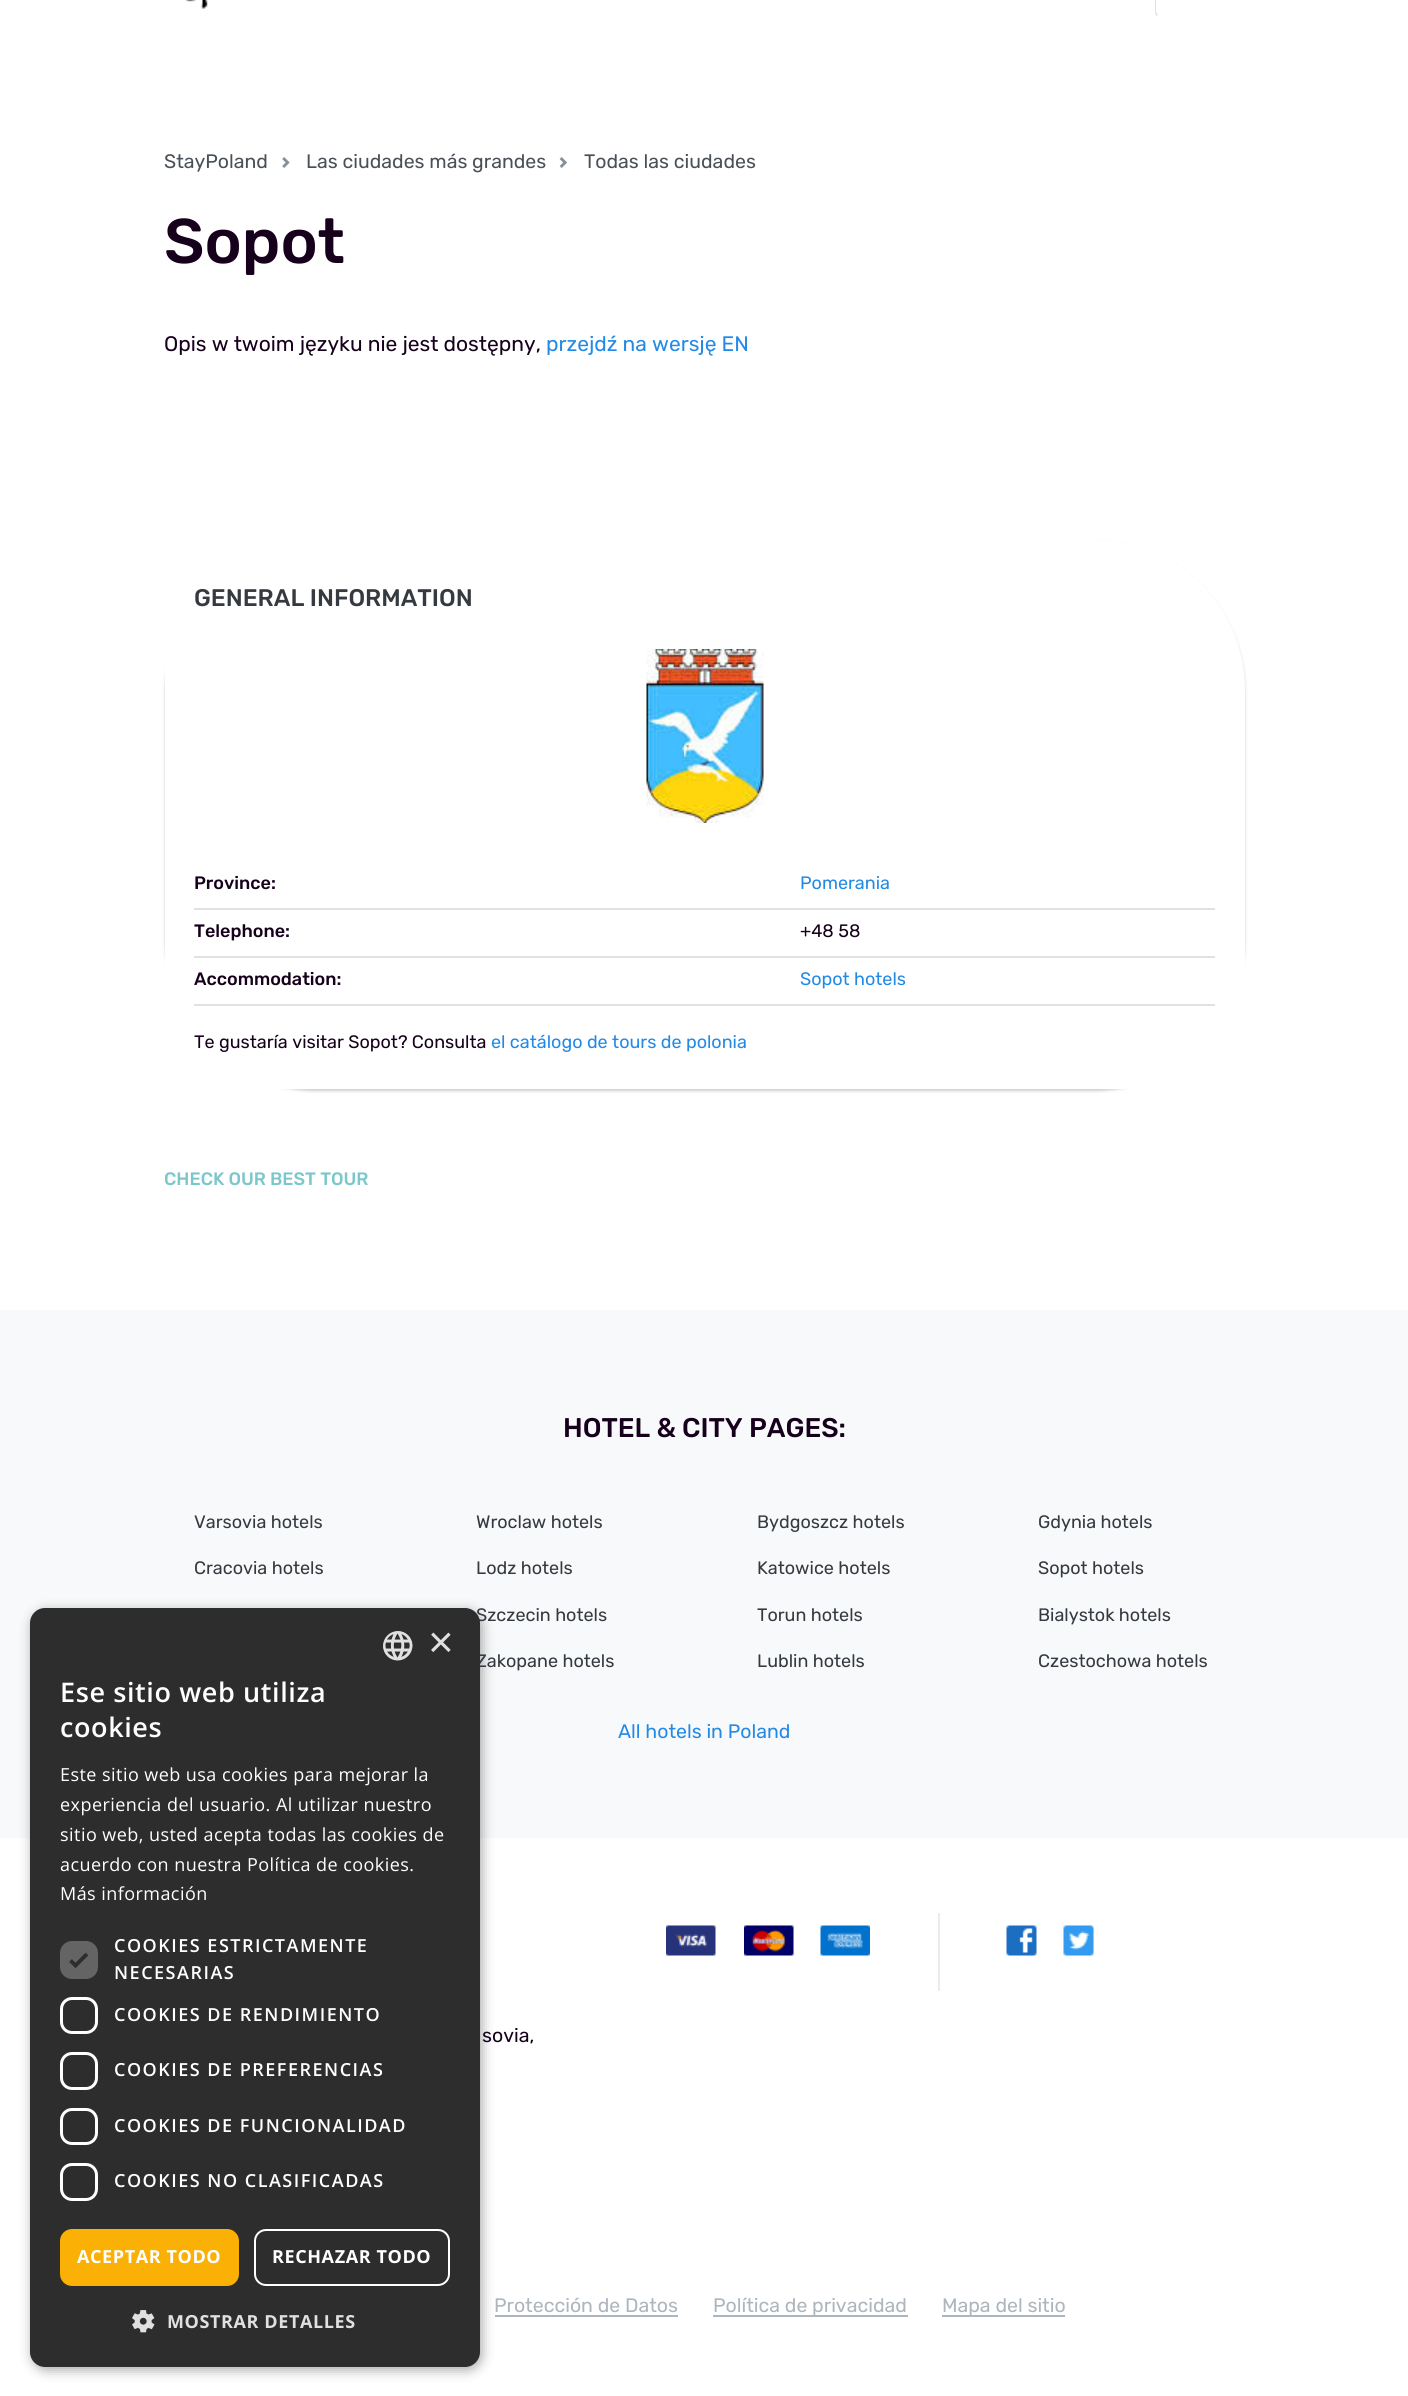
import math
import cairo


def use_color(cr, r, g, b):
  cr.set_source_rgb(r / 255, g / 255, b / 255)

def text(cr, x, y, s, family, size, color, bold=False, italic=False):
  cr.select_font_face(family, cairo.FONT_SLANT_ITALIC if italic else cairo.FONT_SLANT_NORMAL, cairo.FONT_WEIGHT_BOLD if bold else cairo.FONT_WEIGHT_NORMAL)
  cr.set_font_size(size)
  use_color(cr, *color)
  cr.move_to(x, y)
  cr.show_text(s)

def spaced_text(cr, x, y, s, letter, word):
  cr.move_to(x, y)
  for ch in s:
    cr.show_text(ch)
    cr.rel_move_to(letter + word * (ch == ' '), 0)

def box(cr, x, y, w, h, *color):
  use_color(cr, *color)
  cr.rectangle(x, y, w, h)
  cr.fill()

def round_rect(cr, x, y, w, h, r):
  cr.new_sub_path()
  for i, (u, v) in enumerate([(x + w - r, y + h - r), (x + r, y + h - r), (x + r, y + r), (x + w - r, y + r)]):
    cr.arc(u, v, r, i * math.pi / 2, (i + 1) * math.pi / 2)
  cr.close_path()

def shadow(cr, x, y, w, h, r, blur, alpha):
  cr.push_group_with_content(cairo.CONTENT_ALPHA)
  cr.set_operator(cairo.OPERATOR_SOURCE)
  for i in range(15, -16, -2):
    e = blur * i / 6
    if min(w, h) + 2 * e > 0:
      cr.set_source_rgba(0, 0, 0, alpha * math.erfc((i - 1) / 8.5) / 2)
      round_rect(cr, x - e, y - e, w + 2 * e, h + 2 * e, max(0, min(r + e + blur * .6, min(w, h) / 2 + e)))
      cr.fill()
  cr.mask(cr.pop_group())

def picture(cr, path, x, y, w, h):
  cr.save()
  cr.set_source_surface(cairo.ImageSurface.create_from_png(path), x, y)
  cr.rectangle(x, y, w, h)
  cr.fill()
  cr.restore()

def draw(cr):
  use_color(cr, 255, 255, 255)
  cr.paint()
  picture(cr, "img_01.png", 185, 0, 23, 9)
  use_color(cr, 222, 226, 230)
  cr.new_path()
  cr.move_to(1155, -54)
  cr.line_to(1155, 12)
  cr.curve_to(1155, 14, 1156, 15, 1157, 16)
  cr.line_to(1158, 15)
  cr.line_to(1156, 12)
  cr.line_to(1156, -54)
  cr.line_to(1158, -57)
  cr.line_to(1157, -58)
  cr.curve_to(1156, -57, 1155, -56, 1155, -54)
  cr.close_path()
  cr.fill()
  picture(cr, "img_02.png", 282, 157, 8, 11)
  picture(cr, "img_03.png", 559, 157, 8, 11)
  use_color(cr, 0, 0, 0)
  shadow(cr, 165, 542, 1080, 549, 150, 1.5, 0.2)
  use_color(cr, 255, 255, 255)
  cr.new_path()
  cr.move_to(165, 540)
  cr.line_to(1095, 540)
  cr.curve_to(1178, 540, 1245, 607, 1245, 690)
  cr.line_to(1245, 1089)
  cr.line_to(165, 1089)
  cr.close_path()
  cr.fill()
  picture(cr, "img_04.png", 646, 649, 118, 174)
  box(cr, 194, 908, 1021, 2, 222, 226, 230)
  box(cr, 194, 956, 1021, 2, 222, 226, 230)
  box(cr, 194, 1004, 1021, 2, 222, 226, 230)
  box(cr, 0, 1310, 1408, 528, 248, 249, 250)
  box(cr, 495, 2315, 183, 2, 173, 181, 189)
  use_color(cr, 0, 0, 0)
  shadow(cr, 32, 1611, 450, 759, 15, 6, 0.35)
  box(cr, 938, 1913, 2, 78, 233, 236, 239)
  picture(cr, "img_07.png", 666, 1925, 50, 31)
  picture(cr, "img_08.png", 744, 1925, 50, 31)
  picture(cr, "img_09.png", 820, 1925, 50, 31)
  picture(cr, "img_10.png", 1006, 1925, 31, 31)
  picture(cr, "img_11.png", 1063, 1925, 31, 31)
  box(cr, 713, 2315, 195, 2, 173, 181, 189)
  box(cr, 942, 2315, 123, 2, 173, 181, 189)
  text(cr, 164, 168, "StayPoland", "Rubik", 19.5, (73, 80, 87))
  text(cr, 306, 168, "Las ciudades más grandes", "Rubik", 19.5, (73, 80, 87))
  text(cr, 584, 168, "Todas las ciudades", "Rubik", 19.5, (73, 80, 87))
  text(cr, 164, 263, "Sopot", "Rubik Medium", 63, (22, 0, 28))
  text(cr, 164, 351, "Opis w twoim języku nie jest dostępny,", "Rubik", 21, (22, 0, 28))
  text(cr, 546, 351, "przejdź na wersję EN", "Rubik", 21, (34, 138, 230))
  text(cr, 194, 606, "GENERAL INFORMATION", "Rubik Medium", 24, (52, 58, 64))
  text(cr, 194, 889, "Province:", "Rubik Medium", 18, (22, 0, 28))
  text(cr, 800, 889, "Pomerania", "Rubik", 18, (34, 138, 230))
  text(cr, 194, 937, "Telephone:", "Rubik Medium", 18, (22, 0, 28))
  text(cr, 800, 937, "+48 58", "Rubik", 18, (22, 0, 28))
  text(cr, 194, 985, "Accommodation:", "Rubik Medium", 18, (22, 0, 28))
  text(cr, 800, 985, "Sopot hotels", "Rubik", 18, (34, 138, 230))
  text(cr, 194, 1048, "Te gustaría visitar Sopot? Consulta", "Rubik", 18, (22, 0, 28))
  text(cr, 491, 1048, "el catálogo de tours de polonia", "Rubik", 18, (34, 138, 230))
  text(cr, 164, 1185, "CHECK OUR BEST TOUR", "Rubik Medium", 18, (124, 199, 203))
  text(cr, 563, 1437, "HOTEL & CITY PAGES:", "Rubik Medium", 27, (22, 0, 28))
  text(cr, 194, 1528, "Varsovia hotels", "Rubik", 18, (52, 58, 64))
  text(cr, 194, 1574, "Cracovia hotels", "Rubik", 18, (52, 58, 64))
  text(cr, 476, 1528, "Wroclaw hotels", "Rubik", 18, (52, 58, 64))
  text(cr, 476, 1574, "Lodz hotels", "Rubik", 18, (52, 58, 64))
  text(cr, 476, 1621, "Szczecin hotels", "Rubik", 18, (52, 58, 64))
  text(cr, 476, 1667, "Zakopane hotels", "Rubik", 18, (52, 58, 64))
  text(cr, 757, 1528, "Bydgoszcz hotels", "Rubik", 18, (52, 58, 64))
  text(cr, 757, 1574, "Katowice hotels", "Rubik", 18, (52, 58, 64))
  text(cr, 757, 1621, "Torun hotels", "Rubik", 18, (52, 58, 64))
  text(cr, 757, 1667, "Lublin hotels", "Rubik", 18, (52, 58, 64))
  text(cr, 1038, 1528, "Gdynia hotels", "Rubik", 18, (52, 58, 64))
  text(cr, 1038, 1574, "Sopot hotels", "Rubik", 18, (52, 58, 64))
  text(cr, 1038, 1621, "Bialystok hotels", "Rubik", 18, (52, 58, 64))
  text(cr, 1038, 1667, "Czestochowa hotels", "Rubik", 18, (52, 58, 64))
  text(cr, 618, 1738, "All hotels in Poland", "Rubik", 19.5, (34, 138, 230))
  use_color(cr, 45, 45, 45)
  round_rect(cr, 30, 1608, 450, 759, 15)
  cr.fill()
  picture(cr, "img_05.png", 383, 1631, 30, 30)
  text(cr, 428, 1657, "×", "Liberation Sans", 44, (224, 224, 224))
  cr.select_font_face("Open Sans SemiBold")
  cr.set_font_size(27)
  use_color(cr, 255, 255, 255)
  spaced_text(cr, 60, 1702, "Ese sitio web utiliza", 0.6, 0)
  spaced_text(cr, 60, 1737, "cookies", 0.6, 0)
  cr.select_font_face("Open Sans")
  cr.set_font_size(18)
  spaced_text(cr, 60, 1781, "Este sitio web usa cookies para mejorar la", 0.45, 0)
  spaced_text(cr, 60, 1811, "experiencia del usuario. Al utilizar nuestro", 0.45, 0)
  spaced_text(cr, 60, 1841, "sitio web, usted acepta todas las cookies de", 0.45, 0)
  spaced_text(cr, 60, 1871, "acuerdo con nuestra Política de cookies.", 0.45, 0)
  spaced_text(cr, 60, 1900, "Más información", 0.45, 0)
  use_color(cr, 100, 100, 100)
  round_rect(cr, 60, 1941, 38, 38, 12)
  cr.fill()
  cr.new_path()
  cr.move_to(70.5, 1960.5)
  cr.line_to(75.5, 1965.5)
  cr.line_to(87, 1954)
  use_color(cr, 45, 45, 45)
  cr.set_line_width(3.9)
  cr.stroke()
  cr.select_font_face("Open Sans SemiBold")
  use_color(cr, 255, 255, 255)
  spaced_text(cr, 114, 1952, "COOKIES ESTRICTAMENTE", 1.5, 0)
  spaced_text(cr, 114, 1979, "NECESARIAS", 1.5, 0)
  round_rect(cr, 61.5, 1998.5, 35, 34, 10.5)
  cr.set_line_width(3)
  cr.stroke()
  spaced_text(cr, 114, 2021, "COOKIES DE RENDIMIENTO", 1.5, 0)
  round_rect(cr, 61.5, 2053.5, 35, 35, 10.5)
  cr.stroke()
  spaced_text(cr, 114, 2076, "COOKIES DE PREFERENCIAS", 1.5, 0)
  round_rect(cr, 61.5, 2109.5, 35, 34, 10.5)
  cr.stroke()
  spaced_text(cr, 114, 2132, "COOKIES DE FUNCIONALIDAD", 1.5, 0)
  round_rect(cr, 61.5, 2164.5, 35, 35, 10.5)
  cr.stroke()
  spaced_text(cr, 114, 2187, "COOKIES NO CLASIFICADAS", 1.5, 0)
  use_color(cr, 250, 176, 5)
  round_rect(cr, 60, 2229, 179, 57, 12)
  cr.fill()
  cr.select_font_face("Open Sans", cairo.FONT_SLANT_NORMAL, cairo.FONT_WEIGHT_BOLD)
  use_color(cr, 255, 255, 255)
  spaced_text(cr, 77, 2263, "ACEPTAR TODO", 0.6, 0)
  round_rect(cr, 255, 2230, 194, 55, 11)
  cr.set_line_width(2)
  cr.stroke()
  spaced_text(cr, 272, 2263, "RECHAZAR TODO", 0.6, 0)
  picture(cr, "img_06.png", 132, 2310, 23, 23)
  use_color(cr, 224, 224, 224)
  spaced_text(cr, 167, 2328, "MOSTRAR DETALLES", 0.6, 0)
  text(cr, 482, 2042, "sovia,", "Rubik", 19.5, (22, 0, 28))
  text(cr, 494, 2312, "Protección de Datos", "Rubik", 19.5, (173, 181, 189))
  text(cr, 713, 2312, "Política de privacidad", "Rubik", 19.5, (173, 181, 189))
  text(cr, 942, 2312, "Mapa del sitio", "Rubik", 19.5, (173, 181, 189))


surface = cairo.ImageSurface(cairo.FORMAT_RGB24, 1408, 2396)
cr = cairo.Context(surface)
options = cairo.FontOptions()
options.set_hint_metrics(cairo.HINT_METRICS_OFF)
options.set_hint_style(cairo.HINT_STYLE_NONE)
cr.set_font_options(options)
cr.set_miter_limit(4)
draw(cr)
surface.write_to_png("out.png")
